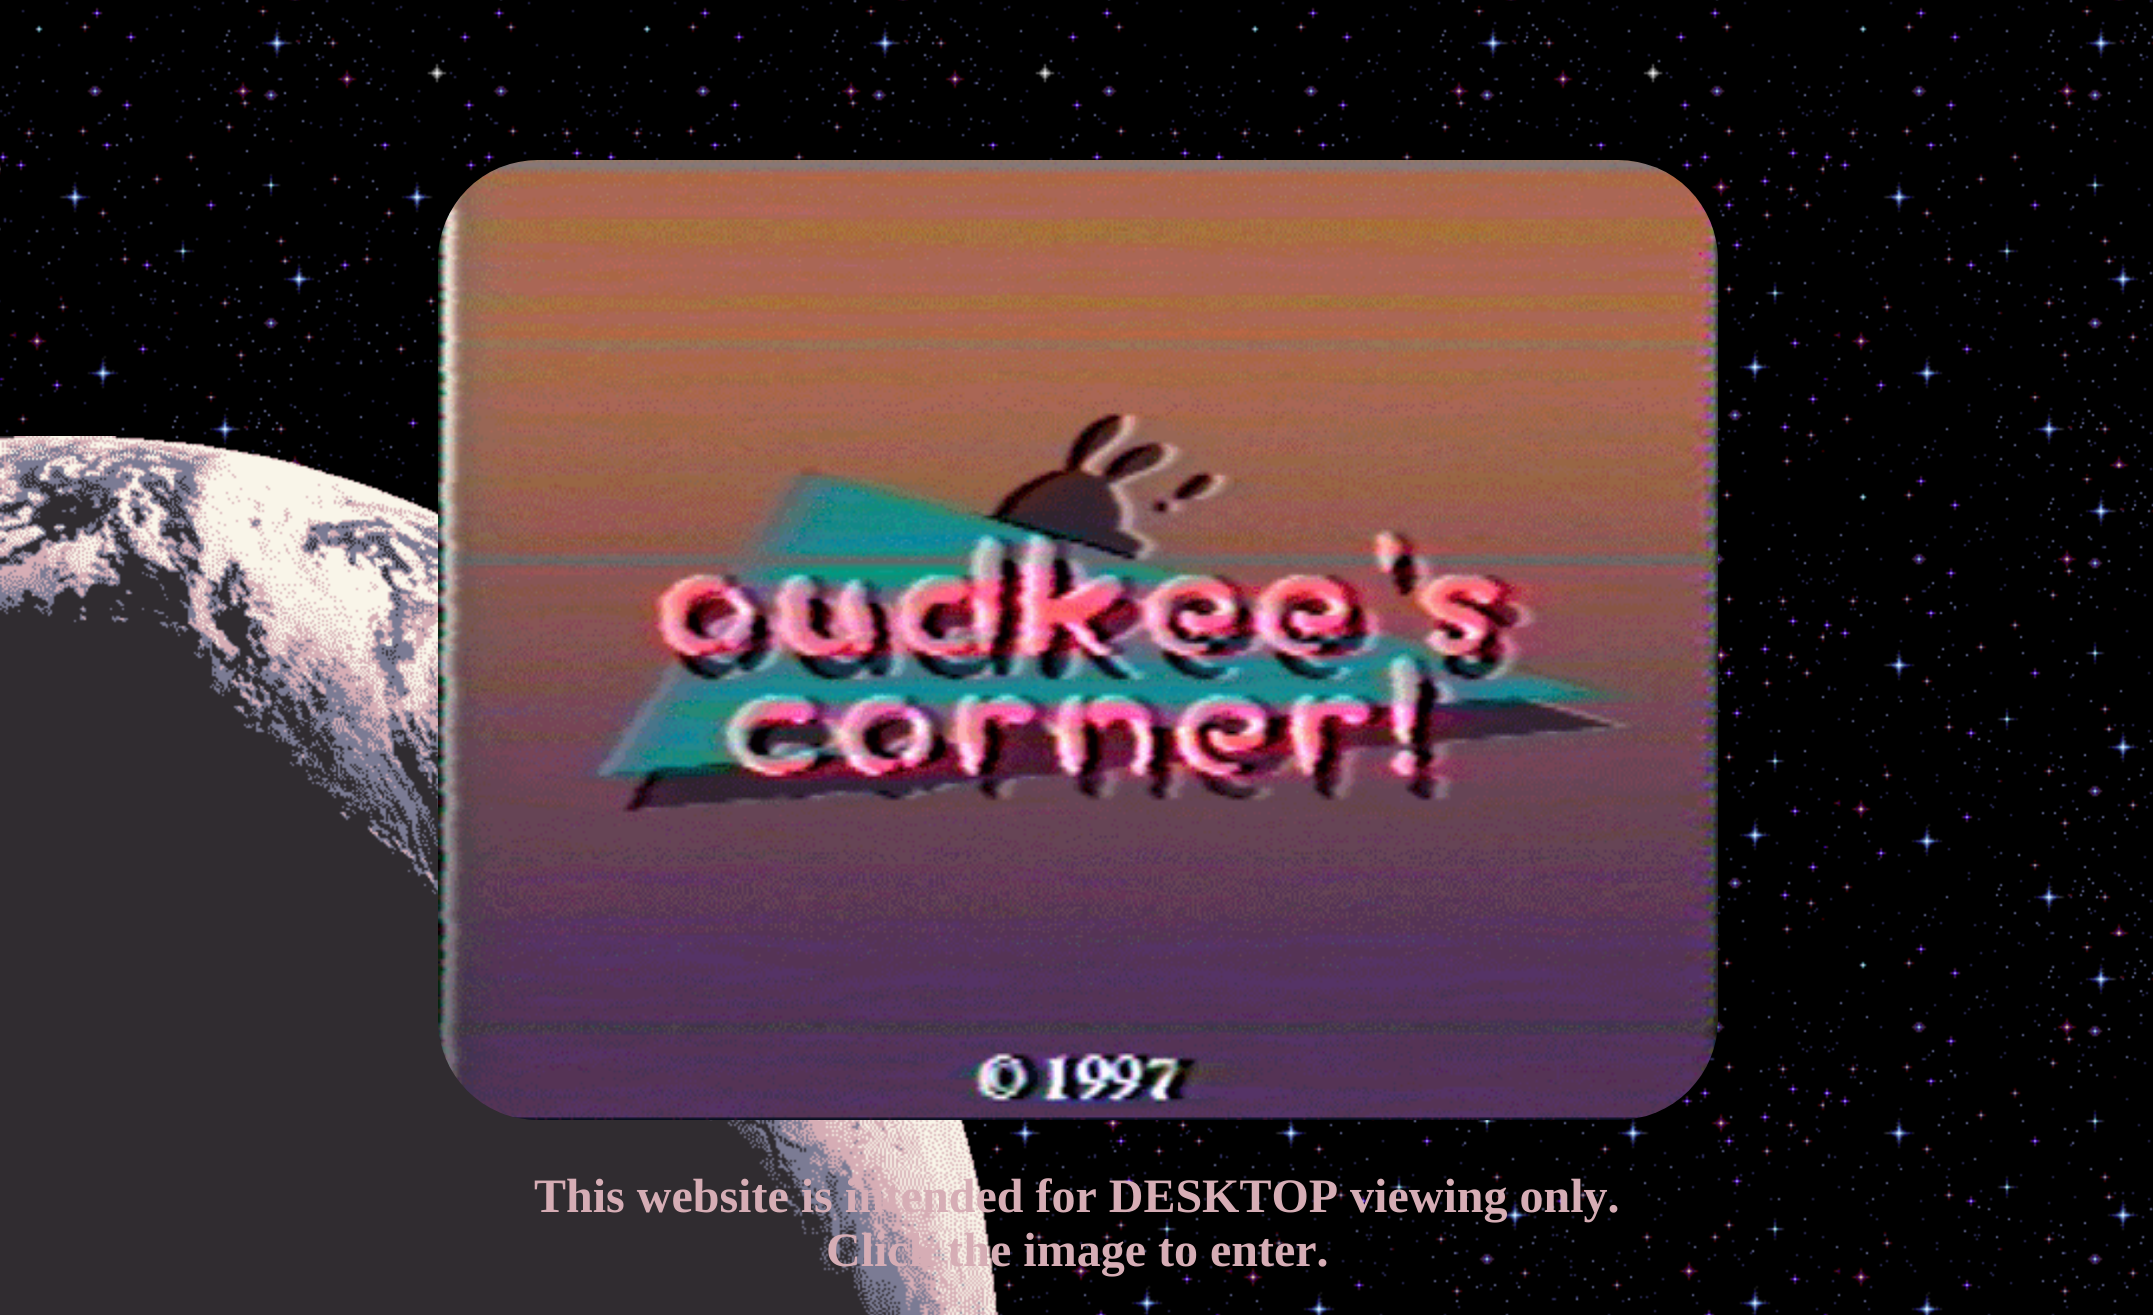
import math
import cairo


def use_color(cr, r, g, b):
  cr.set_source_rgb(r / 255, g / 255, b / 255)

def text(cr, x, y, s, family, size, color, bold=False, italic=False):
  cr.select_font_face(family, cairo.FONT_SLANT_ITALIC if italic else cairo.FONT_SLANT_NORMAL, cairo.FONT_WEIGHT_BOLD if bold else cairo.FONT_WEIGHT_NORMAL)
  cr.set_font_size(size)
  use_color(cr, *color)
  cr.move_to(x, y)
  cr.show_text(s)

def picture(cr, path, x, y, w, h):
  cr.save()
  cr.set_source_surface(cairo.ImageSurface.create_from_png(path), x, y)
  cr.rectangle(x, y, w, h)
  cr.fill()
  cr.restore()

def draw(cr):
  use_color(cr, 255, 255, 255)
  cr.paint()
  picture(cr, "img_01.png", 0, 0, 2153, 1315)
  picture(cr, "img_02.png", 0, 436, 999, 879)
  picture(cr, "img_03.png", 438, 160, 1280, 960)
  text(cr, 534, 1212, "This website is intended for DESKTOP viewing only.", "Liberation Serif", 48, (214, 173, 181), bold=True)
  text(cr, 826, 1266, "Click the image to enter.", "Liberation Serif", 48, (214, 173, 181), bold=True)


surface = cairo.ImageSurface(cairo.FORMAT_RGB24, 2153, 1315)
cr = cairo.Context(surface)
options = cairo.FontOptions()
options.set_hint_metrics(cairo.HINT_METRICS_OFF)
options.set_hint_style(cairo.HINT_STYLE_NONE)
cr.set_font_options(options)
cr.set_miter_limit(4)
draw(cr)
surface.write_to_png("out.png")
